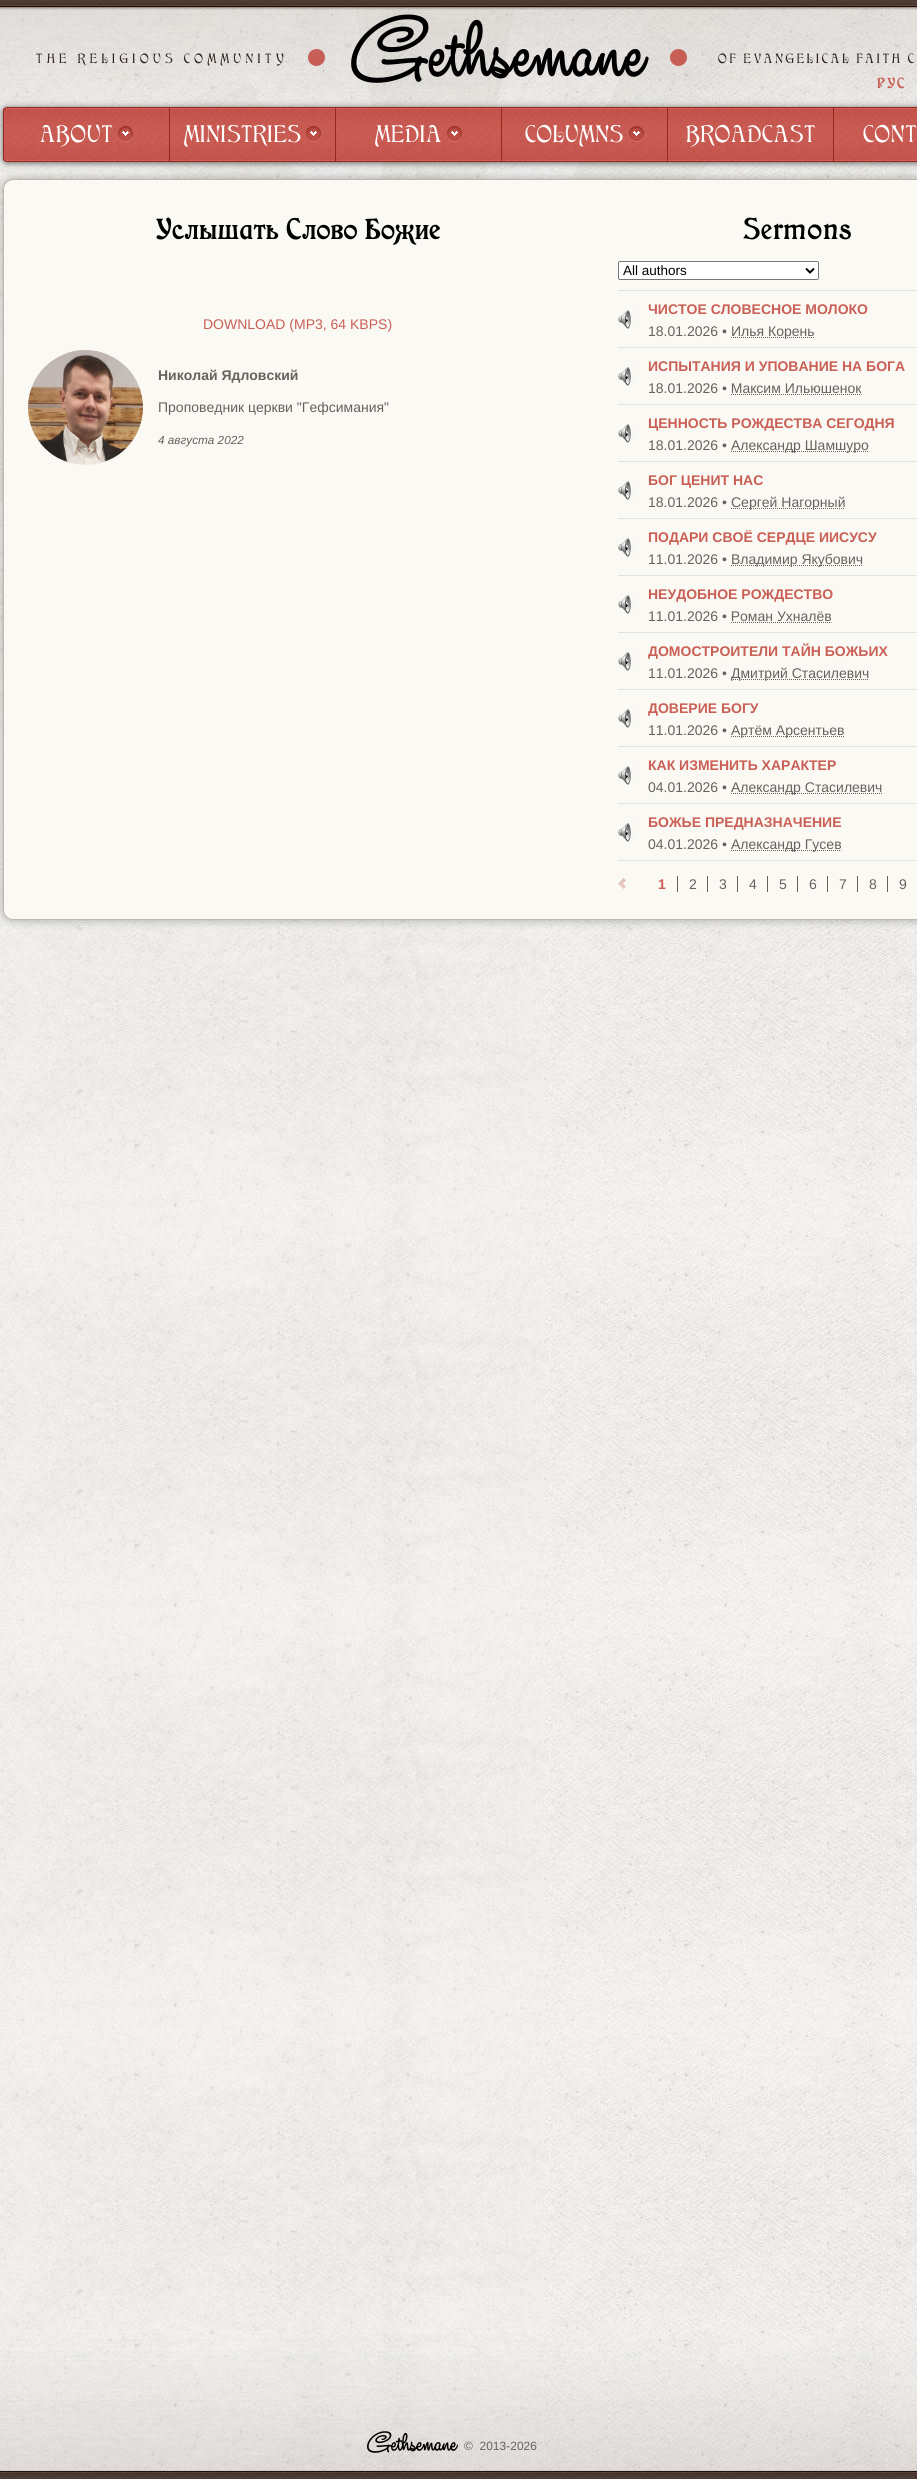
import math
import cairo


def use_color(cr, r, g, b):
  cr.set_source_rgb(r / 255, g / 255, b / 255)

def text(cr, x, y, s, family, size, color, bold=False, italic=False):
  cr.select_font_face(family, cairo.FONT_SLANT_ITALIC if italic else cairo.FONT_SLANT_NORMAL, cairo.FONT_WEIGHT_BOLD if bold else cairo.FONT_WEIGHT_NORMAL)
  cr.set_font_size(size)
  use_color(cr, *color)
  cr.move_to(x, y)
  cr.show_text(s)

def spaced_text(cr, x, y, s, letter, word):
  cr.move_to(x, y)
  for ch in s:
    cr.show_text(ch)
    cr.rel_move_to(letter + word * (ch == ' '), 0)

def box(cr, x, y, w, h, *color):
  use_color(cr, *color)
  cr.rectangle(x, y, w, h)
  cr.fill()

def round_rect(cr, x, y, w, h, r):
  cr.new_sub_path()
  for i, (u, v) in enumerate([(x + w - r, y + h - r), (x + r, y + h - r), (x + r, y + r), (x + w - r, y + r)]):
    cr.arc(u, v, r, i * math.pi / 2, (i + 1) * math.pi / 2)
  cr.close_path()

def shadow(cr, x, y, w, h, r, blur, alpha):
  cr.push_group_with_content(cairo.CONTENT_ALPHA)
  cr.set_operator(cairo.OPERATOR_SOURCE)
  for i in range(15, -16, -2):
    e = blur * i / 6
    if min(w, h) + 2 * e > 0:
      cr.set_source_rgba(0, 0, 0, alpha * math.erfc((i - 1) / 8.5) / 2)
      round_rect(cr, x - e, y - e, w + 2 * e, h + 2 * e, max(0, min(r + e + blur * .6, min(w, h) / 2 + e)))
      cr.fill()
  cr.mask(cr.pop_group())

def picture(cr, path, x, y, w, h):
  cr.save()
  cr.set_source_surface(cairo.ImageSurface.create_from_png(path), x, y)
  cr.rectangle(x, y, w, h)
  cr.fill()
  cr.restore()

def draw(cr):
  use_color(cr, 255, 255, 255)
  cr.paint()
  picture(cr, "img_01.png", 0, 0, 917, 2479)
  use_color(cr, 200, 95, 87)
  cr.arc(316.5, 57.5, 8.5, 0, 2 * math.pi)
  cr.fill()
  cr.arc(678.5, 57.5, 8.5, 0, 2 * math.pi)
  cr.fill()
  use_color(cr, 0, 0, 0)
  shadow(cr, 3, 108, 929, 55, 4, 3.5, 0.6)
  picture(cr, "img_02.png", 3, 108, 914, 53)
  round_rect(cr, 3.5, 107.5, 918, 54, 3.5)
  use_color(cr, 150, 39, 29)
  cr.set_line_width(1)
  cr.stroke()
  box(cr, 169, 108, 1, 53, 150, 39, 29)
  picture(cr, "img_03.png", 118, 126, 15, 16)
  box(cr, 335, 108, 1, 53, 150, 39, 29)
  picture(cr, "img_04.png", 306, 126, 15, 16)
  box(cr, 501, 108, 1, 53, 150, 39, 29)
  picture(cr, "img_05.png", 447, 126, 15, 16)
  box(cr, 667, 108, 1, 53, 150, 39, 29)
  picture(cr, "img_06.png", 629, 126, 15, 16)
  box(cr, 833, 108, 1, 53, 150, 39, 29)
  use_color(cr, 0, 0, 0)
  shadow(cr, 3, 179, 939, 741, 10, 5, 0.3)
  use_color(cr, 250, 249, 244)
  round_rect(cr, 3.5, 179.5, 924, 740, 9.5)
  cr.fill_preserve()
  use_color(cr, 190, 185, 171)
  cr.stroke()
  picture(cr, "img_07.png", 28, 350, 115, 115)
  use_color(cr, 255, 255, 255)
  round_rect(cr, 618.5, 261.5, 200, 18, 1.5)
  cr.fill_preserve()
  use_color(cr, 118, 118, 118)
  cr.stroke()
  cr.new_path()
  cr.move_to(806, 268.5)
  cr.line_to(810, 272.5)
  cr.line_to(814, 268.5)
  use_color(cr, 0, 0, 0)
  cr.set_line_width(2)
  cr.stroke()
  box(cr, 618, 290, 299, 1, 226, 226, 225)
  box(cr, 618, 347, 299, 1, 226, 226, 225)
  picture(cr, "img_08.png", 618, 310, 21, 19)
  cr.new_path()
  cr.move_to(731, 337.5)
  cr.line_to(814.5, 337.5)
  use_color(cr, 102, 98, 93)
  cr.set_line_width(1)
  cr.set_dash([1, 1])
  cr.stroke()
  box(cr, 618, 404, 299, 1, 226, 226, 225)
  picture(cr, "img_08.png", 618, 367, 21, 19)
  cr.new_path()
  cr.move_to(731, 394.5)
  cr.line_to(861.5, 394.5)
  use_color(cr, 102, 98, 93)
  cr.stroke()
  box(cr, 618, 461, 299, 1, 226, 226, 225)
  picture(cr, "img_08.png", 618, 424, 21, 19)
  cr.new_path()
  cr.move_to(731, 451.5)
  cr.line_to(868.5, 451.5)
  use_color(cr, 102, 98, 93)
  cr.stroke()
  box(cr, 618, 518, 299, 1, 226, 226, 225)
  picture(cr, "img_08.png", 618, 481, 21, 19)
  cr.new_path()
  cr.move_to(731, 508.5)
  cr.line_to(845, 508.5)
  use_color(cr, 102, 98, 93)
  cr.stroke()
  box(cr, 618, 575, 299, 1, 226, 226, 225)
  picture(cr, "img_08.png", 618, 538, 21, 19)
  cr.new_path()
  cr.move_to(731, 565.5)
  cr.line_to(863, 565.5)
  use_color(cr, 102, 98, 93)
  cr.stroke()
  box(cr, 618, 632, 299, 1, 226, 226, 225)
  picture(cr, "img_08.png", 618, 595, 21, 19)
  cr.new_path()
  cr.move_to(731, 622.5)
  cr.line_to(831.5, 622.5)
  use_color(cr, 102, 98, 93)
  cr.stroke()
  box(cr, 618, 689, 299, 1, 226, 226, 225)
  picture(cr, "img_08.png", 618, 652, 21, 19)
  cr.new_path()
  cr.move_to(731, 679.5)
  cr.line_to(869, 679.5)
  use_color(cr, 102, 98, 93)
  cr.stroke()
  box(cr, 618, 746, 299, 1, 226, 226, 225)
  picture(cr, "img_08.png", 618, 709, 21, 19)
  cr.new_path()
  cr.move_to(731, 736.5)
  cr.line_to(844, 736.5)
  use_color(cr, 102, 98, 93)
  cr.stroke()
  box(cr, 618, 803, 299, 1, 226, 226, 225)
  picture(cr, "img_08.png", 618, 766, 21, 19)
  cr.new_path()
  cr.move_to(731, 793.5)
  cr.line_to(882, 793.5)
  use_color(cr, 102, 98, 93)
  cr.stroke()
  box(cr, 618, 860, 299, 1, 226, 226, 225)
  picture(cr, "img_08.png", 618, 823, 21, 19)
  cr.new_path()
  cr.move_to(731, 850.5)
  cr.line_to(841.5, 850.5)
  use_color(cr, 102, 98, 93)
  cr.stroke()
  picture(cr, "img_09.png", 618, 878, 8, 11)
  box(cr, 677, 876, 1, 16, 102, 98, 93)
  box(cr, 707, 876, 1, 16, 102, 98, 93)
  box(cr, 737, 876, 1, 16, 102, 98, 93)
  box(cr, 767, 876, 1, 16, 102, 98, 93)
  box(cr, 797, 876, 1, 16, 102, 98, 93)
  box(cr, 827, 876, 1, 16, 102, 98, 93)
  box(cr, 857, 876, 1, 16, 102, 98, 93)
  box(cr, 887, 876, 1, 16, 102, 98, 93)
  cr.select_font_face("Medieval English")
  cr.set_font_size(14)
  use_color(cr, 46, 35, 30)
  spaced_text(cr, 36, 63, "THE RELIGIOUS COMMUNITY", 4, 0)
  cr.select_font_face("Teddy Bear", cairo.FONT_SLANT_NORMAL, cairo.FONT_WEIGHT_BOLD)
  cr.set_font_size(57)
  use_color(cr, 0, 0, 0)
  spaced_text(cr, 348, 74, "Gethsemane", 1, 0)
  cr.select_font_face("Medieval English")
  cr.set_font_size(14)
  use_color(cr, 46, 35, 30)
  spaced_text(cr, 718, 63, "OF EVANGELICAL FAITH C", 2.4, 0)
  cr.select_font_face("Medieval English", cairo.FONT_SLANT_NORMAL, cairo.FONT_WEIGHT_BOLD)
  cr.set_font_size(15)
  use_color(cr, 202, 95, 85)
  spaced_text(cr, 877, 88, "РУС", 2.4, 0)
  text(cr, 40, 142, "ABOUT", "Medieval English", 25, (255, 255, 255))
  text(cr, 184, 142, "MINISTRIES", "Medieval English", 25, (255, 255, 255))
  text(cr, 375, 142, "MEDIA", "Medieval English", 25, (255, 255, 255))
  text(cr, 525, 142, "COLUMNS", "Medieval English", 25, (255, 255, 255))
  text(cr, 686, 142, "BROADCAST", "Medieval English", 25, (255, 255, 255))
  text(cr, 863, 142, "CONT", "Medieval English", 25, (255, 255, 255))
  cr.select_font_face("Medieval English", cairo.FONT_SLANT_NORMAL, cairo.FONT_WEIGHT_BOLD)
  cr.set_font_size(30)
  use_color(cr, 0, 0, 0)
  spaced_text(cr, 156, 239, "Услышать Слово Божие", 1, 0)
  text(cr, 203, 329, "DOWNLOAD (MP3, 64 KBPS)", "Liberation Sans", 14, (202, 95, 85))
  text(cr, 158, 380, "Николай Ядловский", "Liberation Sans", 14, (102, 98, 93), bold=True)
  text(cr, 158, 412, "Проповедник церкви \"Гефсимания\"", "Liberation Sans", 14, (102, 98, 93))
  text(cr, 158, 444, "4 августа 2022", "Liberation Sans", 11.75, (102, 98, 93), italic=True)
  cr.select_font_face("Medieval English", cairo.FONT_SLANT_NORMAL, cairo.FONT_WEIGHT_BOLD)
  cr.set_font_size(30)
  use_color(cr, 0, 0, 0)
  spaced_text(cr, 743, 239, "Sermons", 1, 0)
  text(cr, 623, 275, "All authors", "Liberation Sans", 13.5, (0, 0, 0))
  text(cr, 648, 314, "ЧИСТОЕ СЛОВЕСНОЕ МОЛОКО", "Liberation Sans", 14, (202, 95, 85), bold=True)
  text(cr, 648, 336, "18.01.2026 •", "Liberation Sans", 14, (102, 98, 93))
  text(cr, 731, 336, "Илья Корень", "Liberation Sans", 14, (102, 98, 93))
  text(cr, 648, 371, "ИСПЫТАНИЯ И УПОВАНИЕ НА БОГА", "Liberation Sans", 14, (202, 95, 85), bold=True)
  text(cr, 648, 393, "18.01.2026 • Максим Ильюшенок", "Liberation Sans", 14, (102, 98, 93))
  text(cr, 648, 428, "ЦЕННОСТЬ РОЖДЕСТВА СЕГОДНЯ", "Liberation Sans", 14, (202, 95, 85), bold=True)
  text(cr, 648, 450, "18.01.2026 •", "Liberation Sans", 14, (102, 98, 93))
  text(cr, 731, 450, "Александр Шамшуро", "Liberation Sans", 14, (102, 98, 93))
  text(cr, 648, 485, "БОГ ЦЕНИТ НАС", "Liberation Sans", 14, (202, 95, 85), bold=True)
  text(cr, 648, 507, "18.01.2026 •", "Liberation Sans", 14, (102, 98, 93))
  text(cr, 731, 507, "Сергей Нагорный", "Liberation Sans", 14, (102, 98, 93))
  text(cr, 648, 542, "ПОДАРИ СВОЁ СЕРДЦЕ ИИСУСУ", "Liberation Sans", 14, (202, 95, 85), bold=True)
  text(cr, 648, 564, "11.01.2026 •", "Liberation Sans", 14, (102, 98, 93))
  text(cr, 731, 564, "Владимир Якубович", "Liberation Sans", 14, (102, 98, 93))
  text(cr, 648, 599, "НЕУДОБНОЕ РОЖДЕСТВО", "Liberation Sans", 14, (202, 95, 85), bold=True)
  text(cr, 648, 621, "11.01.2026 • Роман Ухналёв", "Liberation Sans", 14, (102, 98, 93))
  text(cr, 648, 656, "ДОМОСТРОИТЕЛИ ТАЙН БОЖЬИХ", "Liberation Sans", 14, (202, 95, 85), bold=True)
  text(cr, 648, 678, "11.01.2026 •", "Liberation Sans", 14, (102, 98, 93))
  text(cr, 731, 678, "Дмитрий Стасилевич", "Liberation Sans", 14, (102, 98, 93))
  text(cr, 648, 713, "ДОВЕРИЕ БОГУ", "Liberation Sans", 14, (202, 95, 85), bold=True)
  text(cr, 648, 735, "11.01.2026 •", "Liberation Sans", 14, (102, 98, 93))
  text(cr, 731, 735, "Артём Арсентьев", "Liberation Sans", 14, (102, 98, 93))
  text(cr, 648, 770, "КАК ИЗМЕНИТЬ ХАРАКТЕР", "Liberation Sans", 14, (202, 95, 85), bold=True)
  text(cr, 648, 792, "04.01.2026 •", "Liberation Sans", 14, (102, 98, 93))
  text(cr, 731, 792, "Александр Стасилевич", "Liberation Sans", 14, (102, 98, 93))
  text(cr, 648, 827, "БОЖЬЕ ПРЕДНАЗНАЧЕНИЕ", "Liberation Sans", 14, (202, 95, 85), bold=True)
  text(cr, 648, 849, "04.01.2026 •", "Liberation Sans", 14, (102, 98, 93))
  text(cr, 731, 849, "Александр Гусев", "Liberation Sans", 14, (102, 98, 93))
  text(cr, 658, 889, "1", "Liberation Sans", 14, (202, 95, 85), bold=True)
  text(cr, 689, 889, "2", "Liberation Sans", 14, (102, 98, 93))
  text(cr, 719, 889, "3", "Liberation Sans", 14, (102, 98, 93))
  text(cr, 749, 889, "4", "Liberation Sans", 14, (102, 98, 93))
  text(cr, 779, 889, "5", "Liberation Sans", 14, (102, 98, 93))
  text(cr, 809, 889, "6", "Liberation Sans", 14, (102, 98, 93))
  text(cr, 839, 889, "7", "Liberation Sans", 14, (102, 98, 93))
  text(cr, 869, 889, "8", "Liberation Sans", 14, (102, 98, 93))
  text(cr, 899, 889, "9", "Liberation Sans", 14, (102, 98, 93))
  text(cr, 366, 2450, "Gethsemane", "Teddy Bear", 18, (0, 0, 0), bold=True)
  text(cr, 464, 2450, "©  2013-2026", "Liberation Sans", 12, (102, 98, 93))


surface = cairo.ImageSurface(cairo.FORMAT_RGB24, 917, 2479)
cr = cairo.Context(surface)
options = cairo.FontOptions()
options.set_hint_metrics(cairo.HINT_METRICS_OFF)
options.set_hint_style(cairo.HINT_STYLE_NONE)
cr.set_font_options(options)
cr.set_miter_limit(4)
draw(cr)
surface.write_to_png("out.png")
